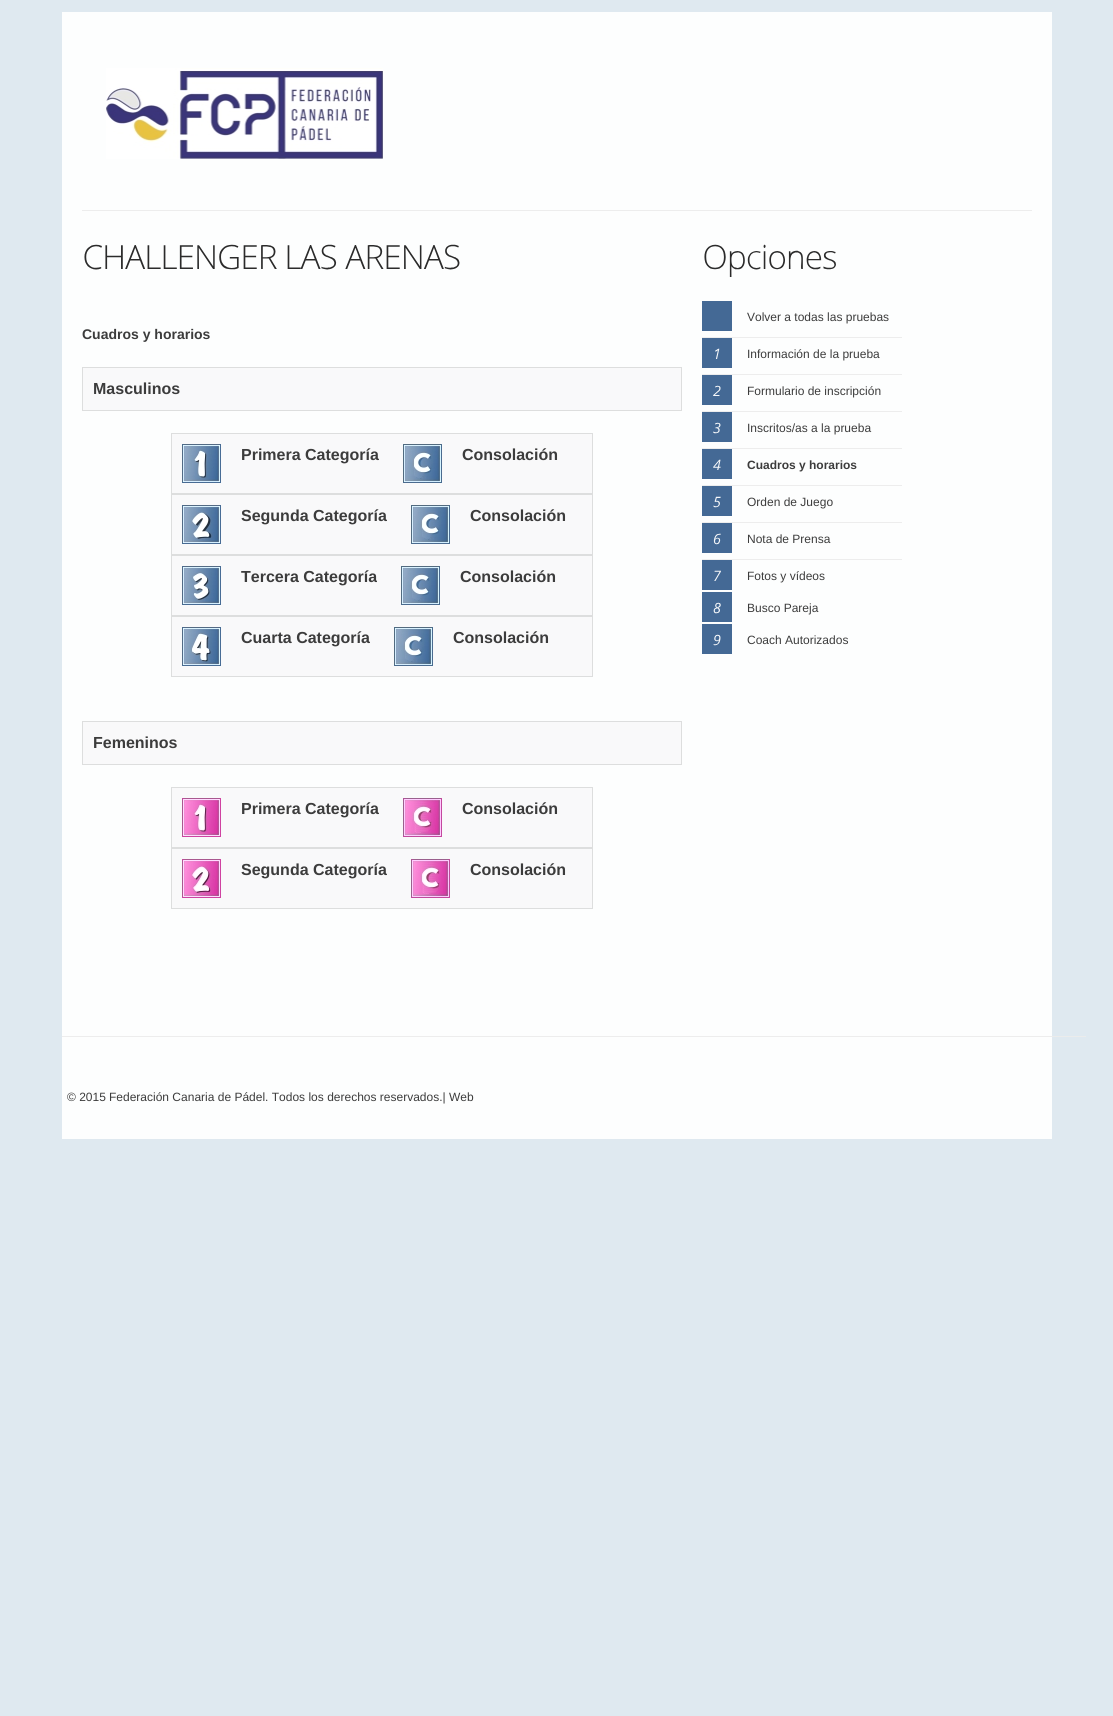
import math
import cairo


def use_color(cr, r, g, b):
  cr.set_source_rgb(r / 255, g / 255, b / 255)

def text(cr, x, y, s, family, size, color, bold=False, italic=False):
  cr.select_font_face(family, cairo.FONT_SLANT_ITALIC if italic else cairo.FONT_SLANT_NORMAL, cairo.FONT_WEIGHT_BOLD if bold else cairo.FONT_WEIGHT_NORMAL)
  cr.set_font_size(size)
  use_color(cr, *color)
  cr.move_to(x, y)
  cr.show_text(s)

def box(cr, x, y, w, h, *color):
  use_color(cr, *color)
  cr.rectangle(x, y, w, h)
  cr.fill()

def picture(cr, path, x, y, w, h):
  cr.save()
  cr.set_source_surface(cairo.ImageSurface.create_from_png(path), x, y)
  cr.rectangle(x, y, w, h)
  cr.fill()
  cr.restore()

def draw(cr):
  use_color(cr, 223, 233, 240)
  cr.paint()
  box(cr, 1052, 1036, 34, 1, 235, 236, 236)
  box(cr, 62, 12, 990, 1127, 253, 254, 254)
  box(cr, 62, 1036, 990, 1, 237, 237, 237)
  picture(cr, "img_01.png", 106, 68, 277, 91)
  box(cr, 82, 210, 950, 1, 237, 237, 237)
  picture(cr, "img_02.png", 84, 244, 193, 26)
  picture(cr, "img_03.png", 287, 244, 50, 26)
  picture(cr, "img_04.png", 345, 244, 115, 26)
  use_color(cr, 249, 249, 250)
  cr.rectangle(82.5, 367.5, 599, 43)
  cr.fill_preserve()
  use_color(cr, 221, 222, 222)
  cr.set_line_width(1)
  cr.stroke()
  use_color(cr, 249, 249, 250)
  cr.rectangle(171.5, 433.5, 421, 60)
  cr.fill_preserve()
  use_color(cr, 221, 222, 222)
  cr.stroke()
  picture(cr, "img_05.png", 182, 444, 39, 39)
  picture(cr, "img_06.png", 403, 444, 39, 39)
  use_color(cr, 249, 249, 250)
  cr.rectangle(171.5, 494.5, 421, 60)
  cr.fill_preserve()
  use_color(cr, 221, 222, 222)
  cr.stroke()
  picture(cr, "img_07.png", 182, 505, 39, 39)
  picture(cr, "img_06.png", 411, 505, 39, 39)
  use_color(cr, 249, 249, 250)
  cr.rectangle(171.5, 555.5, 421, 60)
  cr.fill_preserve()
  use_color(cr, 221, 222, 222)
  cr.stroke()
  picture(cr, "img_08.png", 182, 566, 39, 39)
  picture(cr, "img_06.png", 401, 566, 39, 39)
  use_color(cr, 249, 249, 250)
  cr.rectangle(171.5, 616.5, 421, 60)
  cr.fill_preserve()
  use_color(cr, 221, 222, 222)
  cr.stroke()
  picture(cr, "img_09.png", 182, 627, 39, 39)
  picture(cr, "img_06.png", 394, 627, 39, 39)
  use_color(cr, 249, 249, 250)
  cr.rectangle(82.5, 721.5, 599, 43)
  cr.fill_preserve()
  use_color(cr, 221, 222, 222)
  cr.stroke()
  use_color(cr, 249, 249, 250)
  cr.rectangle(171.5, 787.5, 421, 60)
  cr.fill_preserve()
  use_color(cr, 221, 222, 222)
  cr.stroke()
  picture(cr, "img_10.png", 182, 798, 39, 39)
  picture(cr, "img_11.png", 403, 798, 39, 39)
  use_color(cr, 249, 249, 250)
  cr.rectangle(171.5, 848.5, 421, 60)
  cr.fill_preserve()
  use_color(cr, 221, 222, 222)
  cr.stroke()
  picture(cr, "img_12.png", 182, 859, 39, 39)
  picture(cr, "img_11.png", 411, 859, 39, 39)
  picture(cr, "img_13.png", 704, 244, 132, 33)
  box(cr, 702, 337, 200, 1, 237, 237, 237)
  box(cr, 702, 301, 30, 30, 68, 105, 149)
  box(cr, 702, 374, 200, 1, 237, 237, 237)
  box(cr, 702, 338, 30, 30, 68, 105, 149)
  picture(cr, "img_14.png", 715, 348, 5, 11)
  box(cr, 702, 411, 200, 1, 237, 237, 237)
  box(cr, 702, 375, 30, 30, 68, 105, 149)
  picture(cr, "img_15.png", 713, 385, 8, 11)
  box(cr, 702, 448, 200, 1, 237, 237, 237)
  box(cr, 702, 412, 30, 30, 68, 105, 149)
  picture(cr, "img_16.png", 713, 422, 8, 12)
  box(cr, 702, 485, 200, 1, 237, 237, 237)
  box(cr, 702, 449, 30, 30, 68, 105, 149)
  picture(cr, "img_17.png", 713, 459, 8, 11)
  box(cr, 702, 522, 200, 1, 237, 237, 237)
  box(cr, 702, 486, 30, 30, 68, 105, 149)
  picture(cr, "img_18.png", 713, 496, 8, 12)
  box(cr, 702, 559, 200, 1, 237, 237, 237)
  box(cr, 702, 523, 30, 30, 68, 105, 149)
  picture(cr, "img_19.png", 713, 533, 8, 12)
  box(cr, 702, 560, 30, 30, 68, 105, 149)
  picture(cr, "img_20.png", 714, 570, 7, 11)
  box(cr, 702, 592, 30, 30, 68, 105, 149)
  picture(cr, "img_21.png", 713, 602, 8, 12)
  box(cr, 702, 624, 30, 30, 68, 105, 149)
  picture(cr, "img_22.png", 713, 634, 8, 12)
  text(cr, 82, 339, "Cuadros y horarios", "Liberation Sans", 14, (60, 60, 60), bold=True)
  text(cr, 93, 394, "Masculinos", "Liberation Sans", 16, (60, 60, 60), bold=True)
  text(cr, 241, 460, "Primera Categoría", "Liberation Sans", 16, (60, 60, 60), bold=True)
  text(cr, 462, 460, "Consolación", "Liberation Sans", 16, (60, 60, 60), bold=True)
  text(cr, 241, 521, "Segunda Categoría", "Liberation Sans", 16, (60, 60, 60), bold=True)
  text(cr, 470, 521, "Consolación", "Liberation Sans", 16, (60, 60, 60), bold=True)
  text(cr, 241, 582, "Tercera Categoría", "Liberation Sans", 16, (60, 60, 60), bold=True)
  text(cr, 460, 582, "Consolación", "Liberation Sans", 16, (60, 60, 60), bold=True)
  text(cr, 241, 643, "Cuarta Categoría", "Liberation Sans", 16, (60, 60, 60), bold=True)
  text(cr, 453, 643, "Consolación", "Liberation Sans", 16, (60, 60, 60), bold=True)
  text(cr, 93, 748, "Femeninos", "Liberation Sans", 16, (60, 60, 60), bold=True)
  text(cr, 241, 814, "Primera Categoría", "Liberation Sans", 16, (60, 60, 60), bold=True)
  text(cr, 462, 814, "Consolación", "Liberation Sans", 16, (60, 60, 60), bold=True)
  text(cr, 241, 875, "Segunda Categoría", "Liberation Sans", 16, (60, 60, 60), bold=True)
  text(cr, 470, 875, "Consolación", "Liberation Sans", 16, (60, 60, 60), bold=True)
  text(cr, 747, 321, "Volver a todas las pruebas", "Liberation Sans", 12, (60, 60, 60))
  text(cr, 747, 358, "Información de la prueba", "Liberation Sans", 12, (60, 60, 60))
  text(cr, 747, 395, "Formulario de inscripción", "Liberation Sans", 12, (60, 60, 60))
  text(cr, 747, 432, "Inscritos/as a la prueba", "Liberation Sans", 12, (60, 60, 60))
  text(cr, 747, 469, "Cuadros y horarios", "Liberation Sans", 12, (60, 60, 60), bold=True)
  text(cr, 747, 506, "Orden de Juego", "Liberation Sans", 12, (60, 60, 60))
  text(cr, 747, 543, "Nota de Prensa", "Liberation Sans", 12, (60, 60, 60))
  text(cr, 747, 580, "Fotos y vídeos", "Liberation Sans", 12, (60, 60, 60))
  text(cr, 747, 612, "Busco Pareja", "Liberation Sans", 12, (60, 60, 60))
  text(cr, 747, 644, "Coach Autorizados", "Liberation Sans", 12, (60, 60, 60))
  cr.save()
  cr.rectangle(67, 1081, 750, 32)
  cr.clip()
  text(cr, 67, 1101, "© 2015", "Liberation Sans", 12, (60, 60, 60))
  cr.restore()
  text(cr, 109, 1101, "Federación Canaria de Pádel. Todos los derechos reservados.| Web", "Liberation Sans", 12, (60, 60, 60))


surface = cairo.ImageSurface(cairo.FORMAT_RGB24, 1113, 1716)
cr = cairo.Context(surface)
options = cairo.FontOptions()
options.set_hint_metrics(cairo.HINT_METRICS_OFF)
options.set_hint_style(cairo.HINT_STYLE_NONE)
cr.set_font_options(options)
cr.set_miter_limit(4)
draw(cr)
surface.write_to_png("out.png")
